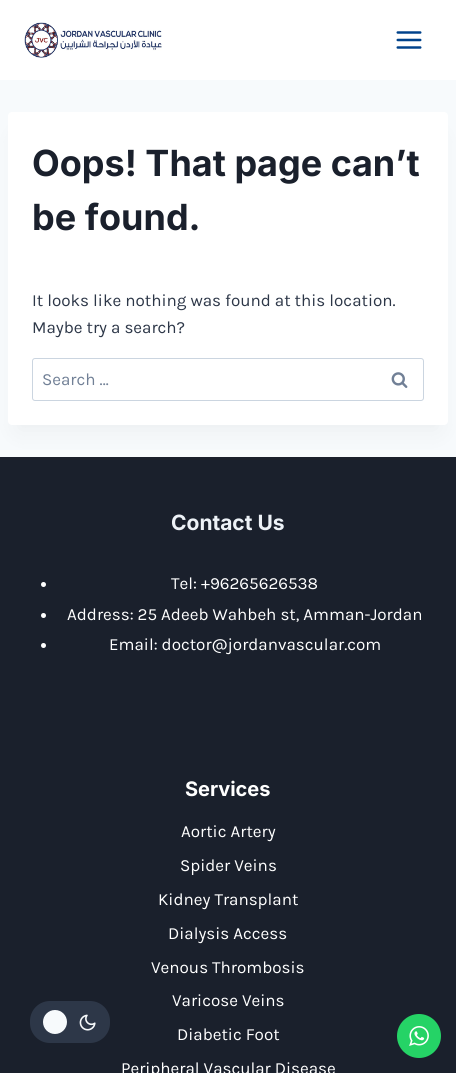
import math
import cairo


def use_color(cr, r, g, b):
  cr.set_source_rgb(r / 255, g / 255, b / 255)

def text(cr, x, y, s, family, size, color, bold=False, italic=False):
  cr.select_font_face(family, cairo.FONT_SLANT_ITALIC if italic else cairo.FONT_SLANT_NORMAL, cairo.FONT_WEIGHT_BOLD if bold else cairo.FONT_WEIGHT_NORMAL)
  cr.set_font_size(size)
  use_color(cr, *color)
  cr.move_to(x, y)
  cr.show_text(s)

def box(cr, x, y, w, h, *color):
  use_color(cr, *color)
  cr.rectangle(x, y, w, h)
  cr.fill()

def round_rect(cr, x, y, w, h, r):
  cr.new_sub_path()
  for i, (u, v) in enumerate([(x + w - r, y + h - r), (x + r, y + h - r), (x + r, y + r), (x + w - r, y + r)]):
    cr.arc(u, v, r, i * math.pi / 2, (i + 1) * math.pi / 2)
  cr.close_path()

def shadow(cr, x, y, w, h, r, blur, alpha):
  cr.push_group_with_content(cairo.CONTENT_ALPHA)
  cr.set_operator(cairo.OPERATOR_SOURCE)
  for i in range(15, -16, -2):
    e = blur * i / 6
    if min(w, h) + 2 * e > 0:
      cr.set_source_rgba(0, 0, 0, alpha * math.erfc((i - 1) / 8.5) / 2)
      round_rect(cr, x - e, y - e, w + 2 * e, h + 2 * e, max(0, min(r + e + blur * .6, min(w, h) / 2 + e)))
      cr.fill()
  cr.mask(cr.pop_group())

def picture(cr, path, x, y, w, h):
  cr.save()
  cr.set_source_surface(cairo.ImageSurface.create_from_png(path), x, y)
  cr.rectangle(x, y, w, h)
  cr.fill()
  cr.restore()

def draw(cr):
  use_color(cr, 247, 250, 252)
  cr.paint()
  box(cr, 0, 0, 456, 80, 255, 255, 255)
  picture(cr, "img_01.png", 24, 22, 138, 36)
  picture(cr, "img_02.png", 396, 31, 26, 18)
  box(cr, 0, 457, 456, 616, 26, 32, 44)
  use_color(cr, 0, 0, 0)
  shadow(cr, 18, 137, 420, 293, 0, 12.5, 0.05)
  use_color(cr, 255, 255, 255)
  round_rect(cr, 8, 112, 440, 313, 4)
  cr.fill()
  round_rect(cr, 32.5, 358.5, 391, 42, 2.5)
  use_color(cr, 203, 213, 224)
  cr.set_line_width(1)
  cr.stroke()
  picture(cr, "img_03.png", 391, 372, 17, 16)
  use_color(cr, 255, 255, 255)
  cr.arc(43.5, 584.5, 2.5, 0, 2 * math.pi)
  cr.fill()
  cr.arc(43.5, 615.5, 2.5, 0, 2 * math.pi)
  cr.fill()
  cr.arc(43.5, 645.5, 2.5, 0, 2 * math.pi)
  cr.fill()
  use_color(cr, 45, 55, 72)
  round_rect(cr, 30, 1001, 80, 42, 20)
  cr.fill()
  use_color(cr, 247, 250, 252)
  cr.arc(55, 1022, 12, 0, 2 * math.pi)
  cr.fill()
  picture(cr, "img_04.png", 79, 1014, 17, 17)
  use_color(cr, 37, 211, 102)
  cr.arc(419, 1036, 22, 0, 2 * math.pi)
  cr.fill()
  picture(cr, "img_05.png", 409, 1026, 20, 20)
  text(cr, 32, 176, "Oops! That page can’t", "Inter", 36, (26, 32, 44), bold=True)
  text(cr, 32, 230, "be found.", "Inter", 36, (26, 32, 44), bold=True)
  text(cr, 32, 306, "It looks like nothing was found at this location.", "Karla", 17, (45, 55, 72))
  text(cr, 32, 333, "Maybe try a search?", "Karla", 17, (45, 55, 72))
  text(cr, 42, 385, "Search …", "Karla", 17, (113, 128, 150))
  text(cr, 171, 530, "Contact Us", "Inter", 21, (237, 242, 247), bold=True)
  text(cr, 171, 589, "Tel: +96265626538", "Karla", 17, (255, 255, 255))
  text(cr, 67, 620, "Address: 25 Adeeb Wahbeh st, Amman-Jordan", "Karla", 17, (255, 255, 255))
  text(cr, 109, 650, "Email: doctor@jordanvascular.com", "Karla", 17, (255, 255, 255))
  text(cr, 185, 796, "Services", "Inter", 20, (255, 255, 255), bold=True)
  text(cr, 181, 837, "Aortic Artery", "Karla", 17, (255, 255, 255))
  text(cr, 180, 871, "Spider Veins", "Karla", 17, (255, 255, 255))
  text(cr, 158, 905, "Kidney Transplant", "Karla", 17, (255, 255, 255))
  text(cr, 168, 939, "Dialysis Access", "Karla", 17, (255, 255, 255))
  text(cr, 151, 973, "Venous Thrombosis", "Karla", 17, (255, 255, 255))
  text(cr, 172, 1006, "Varicose Veins", "Karla", 17, (255, 255, 255))
  text(cr, 177, 1040, "Diabetic Foot", "Karla", 17, (255, 255, 255))
  text(cr, 121, 1074, "Peripheral Vascular Disease", "Karla", 17, (255, 255, 255))


surface = cairo.ImageSurface(cairo.FORMAT_RGB24, 456, 1073)
cr = cairo.Context(surface)
options = cairo.FontOptions()
options.set_hint_metrics(cairo.HINT_METRICS_OFF)
options.set_hint_style(cairo.HINT_STYLE_NONE)
cr.set_font_options(options)
cr.set_miter_limit(4)
draw(cr)
surface.write_to_png("out.png")
